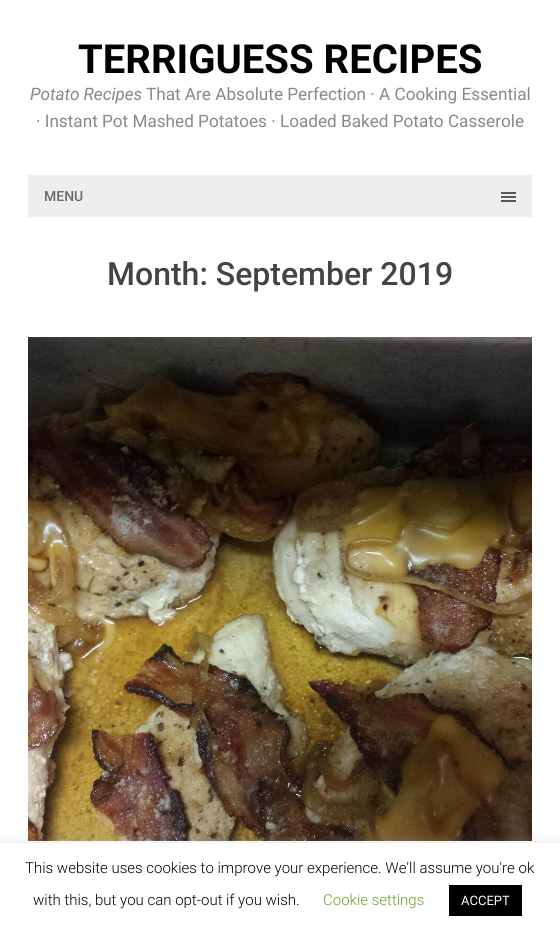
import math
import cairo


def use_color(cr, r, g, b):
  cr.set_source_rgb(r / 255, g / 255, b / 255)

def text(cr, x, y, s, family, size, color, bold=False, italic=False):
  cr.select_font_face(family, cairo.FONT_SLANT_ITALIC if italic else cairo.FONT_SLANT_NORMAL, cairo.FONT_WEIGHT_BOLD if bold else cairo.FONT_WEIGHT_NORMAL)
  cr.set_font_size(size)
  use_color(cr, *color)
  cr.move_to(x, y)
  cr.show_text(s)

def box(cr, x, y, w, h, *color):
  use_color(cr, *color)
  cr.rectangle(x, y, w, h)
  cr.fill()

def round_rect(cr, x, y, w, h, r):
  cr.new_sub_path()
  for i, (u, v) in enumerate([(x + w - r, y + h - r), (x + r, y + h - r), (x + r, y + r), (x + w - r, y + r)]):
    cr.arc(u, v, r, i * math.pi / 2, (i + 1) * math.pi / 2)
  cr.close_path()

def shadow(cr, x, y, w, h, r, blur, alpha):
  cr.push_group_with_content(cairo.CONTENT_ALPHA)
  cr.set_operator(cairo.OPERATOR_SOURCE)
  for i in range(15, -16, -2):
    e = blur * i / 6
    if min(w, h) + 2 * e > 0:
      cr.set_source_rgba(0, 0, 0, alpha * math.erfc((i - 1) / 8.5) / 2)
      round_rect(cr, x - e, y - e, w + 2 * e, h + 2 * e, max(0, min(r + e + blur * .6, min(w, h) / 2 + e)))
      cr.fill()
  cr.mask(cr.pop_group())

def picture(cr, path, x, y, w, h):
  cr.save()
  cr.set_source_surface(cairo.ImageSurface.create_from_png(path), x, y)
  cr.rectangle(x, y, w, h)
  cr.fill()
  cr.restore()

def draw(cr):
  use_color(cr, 255, 255, 255)
  cr.paint()
  box(cr, 28, 175, 504, 42, 238, 238, 238)
  box(cr, 501, 192, 15, 2, 88, 88, 88)
  box(cr, 501, 196, 15, 2, 88, 88, 88)
  box(cr, 501, 200, 15, 2, 88, 88, 88)
  picture(cr, "img_01.png", 28, 337, 504, 504)
  use_color(cr, 172, 171, 171)
  shadow(cr, 0, 842, 560, 90, 0, 5, 0.3)
  box(cr, 0, 843, 560, 90, 255, 255, 255)
  box(cr, 449, 885, 73, 31, 0, 0, 0)
  text(cr, 78, 73, "TERRIGUESS RECIPES", "Roboto", 40, (0, 0, 0), bold=True)
  text(cr, 30, 100, "Potato Recipes", "Roboto", 17.15, (136, 136, 136), italic=True)
  text(cr, 146, 100, "That Are Absolute Perfection · A Cooking Essential", "Roboto", 17.15, (136, 136, 136))
  text(cr, 36, 127, "· Instant Pot Mashed Potatoes · Loaded Baked Potato Casserole", "Roboto", 17.15, (136, 136, 136))
  text(cr, 44, 201, "MENU", "Roboto Medium", 14, (104, 104, 104))
  text(cr, 107, 285, "Month: September 2019", "Roboto Medium", 32, (68, 68, 68))
  text(cr, 25, 873, "This website uses cookies to improve your experience. We'll assume you're ok", "Roboto Light", 15, (0, 0, 0))
  text(cr, 33, 905, "with this, but you can opt-out if you wish.", "Roboto Light", 15, (0, 0, 0))
  text(cr, 323, 905, "Cookie settings", "Roboto Light", 15, (98, 163, 41))
  text(cr, 461, 905, "ACCEPT", "Roboto", 13, (255, 255, 255))


surface = cairo.ImageSurface(cairo.FORMAT_RGB24, 560, 933)
cr = cairo.Context(surface)
options = cairo.FontOptions()
options.set_hint_metrics(cairo.HINT_METRICS_OFF)
options.set_hint_style(cairo.HINT_STYLE_NONE)
cr.set_font_options(options)
cr.set_miter_limit(4)
draw(cr)
surface.write_to_png("out.png")
